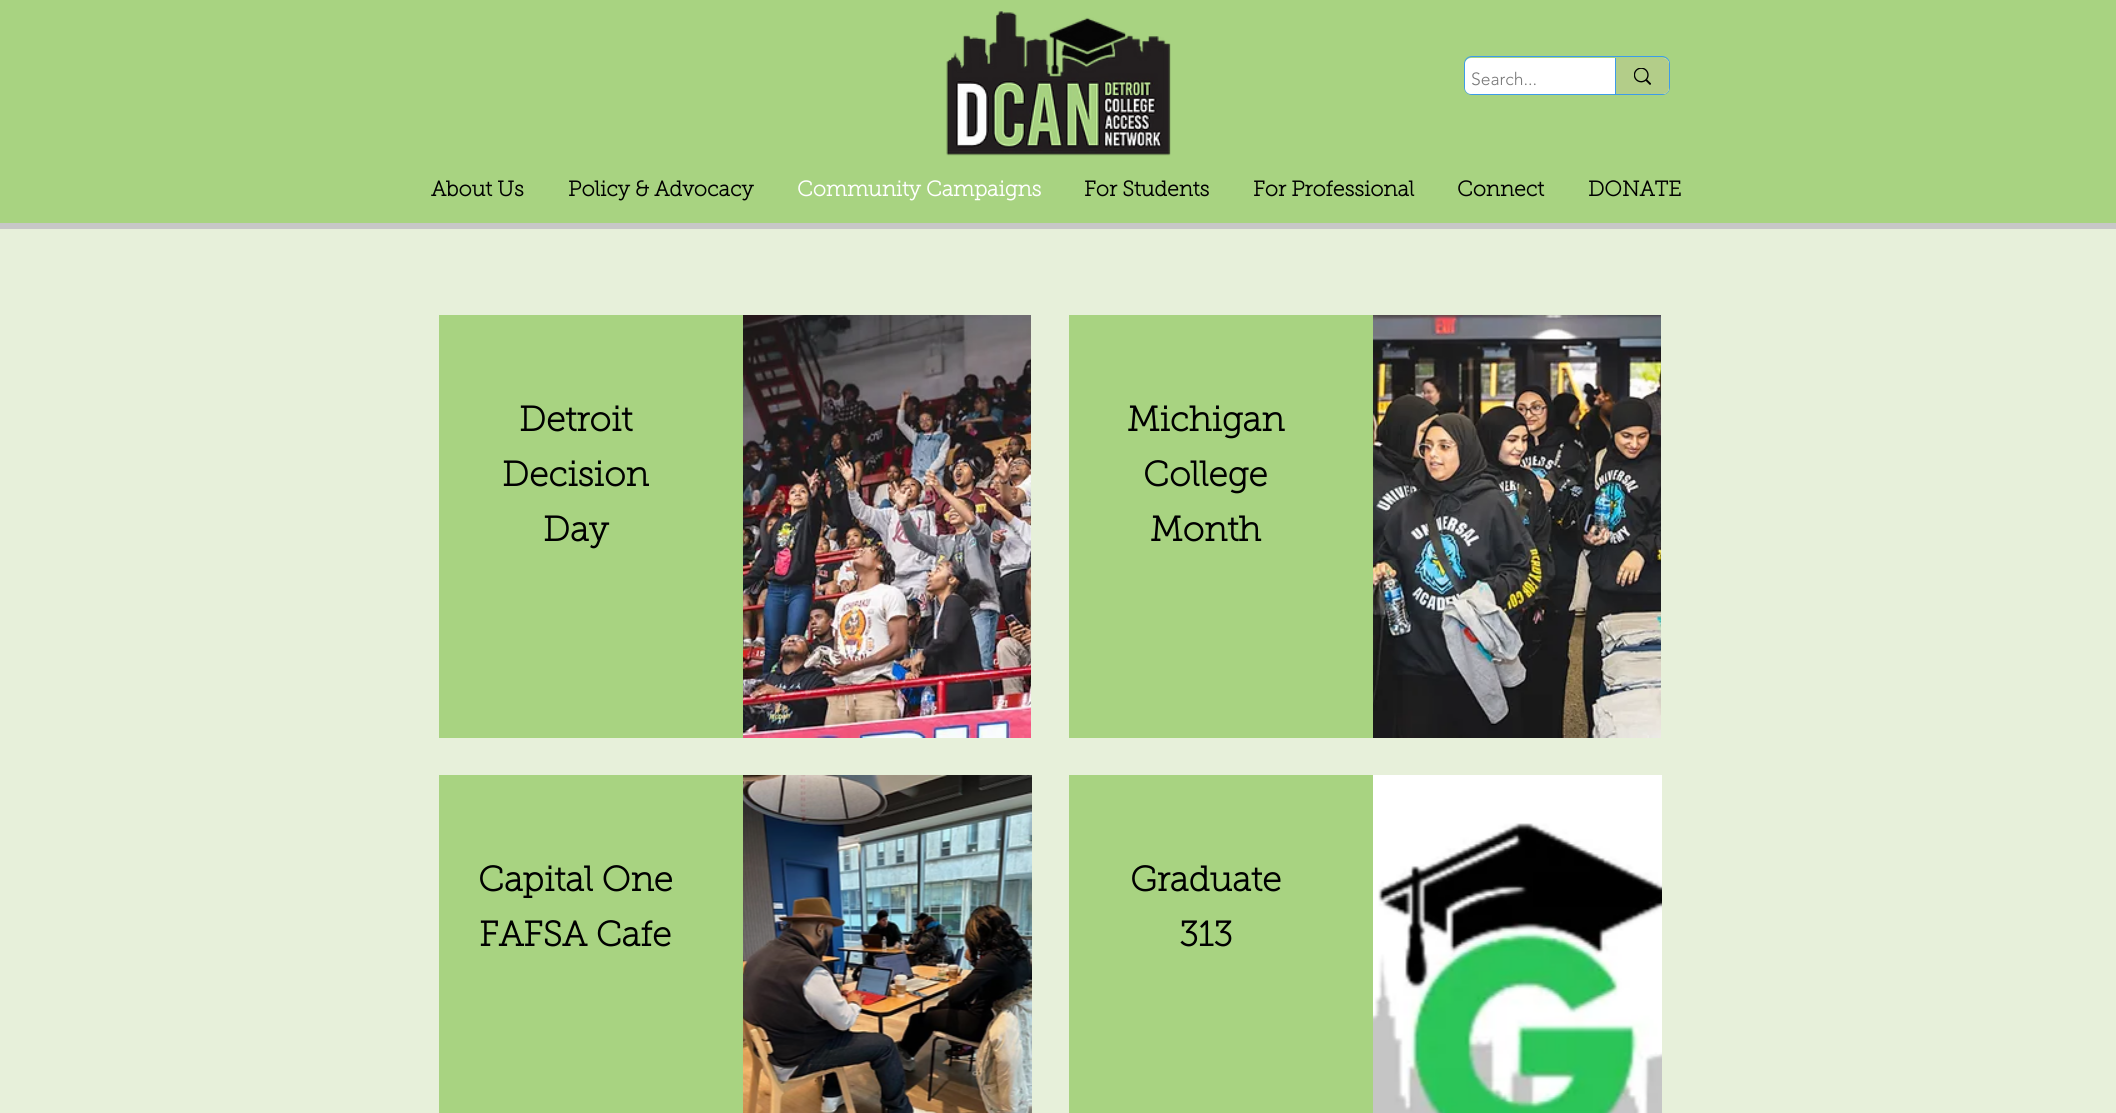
import math
import cairo


def use_color(cr, r, g, b):
  cr.set_source_rgb(r / 255, g / 255, b / 255)

def text(cr, x, y, s, family, size, color, bold=False, italic=False):
  cr.select_font_face(family, cairo.FONT_SLANT_ITALIC if italic else cairo.FONT_SLANT_NORMAL, cairo.FONT_WEIGHT_BOLD if bold else cairo.FONT_WEIGHT_NORMAL)
  cr.set_font_size(size)
  use_color(cr, *color)
  cr.move_to(x, y)
  cr.show_text(s)

def box(cr, x, y, w, h, *color):
  use_color(cr, *color)
  cr.rectangle(x, y, w, h)
  cr.fill()

def round_rect(cr, x, y, w, h, r):
  cr.new_sub_path()
  for i, (u, v) in enumerate([(x + w - r, y + h - r), (x + r, y + h - r), (x + r, y + r), (x + w - r, y + r)]):
    cr.arc(u, v, r, i * math.pi / 2, (i + 1) * math.pi / 2)
  cr.close_path()

def picture(cr, path, x, y, w, h):
  cr.save()
  cr.set_source_surface(cairo.ImageSurface.create_from_png(path), x, y)
  cr.rectangle(x, y, w, h)
  cr.fill()
  cr.restore()

def draw(cr):
  use_color(cr, 231, 240, 218)
  cr.paint()
  box(cr, 0, 0, 2116, 223, 168, 211, 129)
  box(cr, 0, 223, 2116, 6, 199, 199, 199)
  picture(cr, "img_01.png", 946, 11, 225, 145)
  round_rect(cr, 1464.5, 56.5, 205, 38, 7.5)
  use_color(cr, 61, 155, 233)
  cr.set_line_width(1)
  cr.stroke()
  use_color(cr, 255, 255, 255)
  round_rect(cr, 1465, 58, 204, 36, 6)
  cr.fill()
  use_color(cr, 179, 205, 137)
  cr.new_path()
  cr.move_to(1615, 58)
  cr.line_to(1663, 58)
  cr.curve_to(1666.5, 58, 1669, 60.5, 1669, 64)
  cr.line_to(1669, 88)
  cr.curve_to(1669, 91.5, 1666.5, 94, 1663, 94)
  cr.line_to(1615, 94)
  cr.close_path()
  cr.fill()
  box(cr, 1615, 58, 1, 36, 61, 155, 233)
  picture(cr, "img_02.png", 1634, 68, 17, 17)
  box(cr, 439, 315, 304, 423, 168, 211, 129)
  picture(cr, "img_03.png", 743, 315, 288, 423)
  box(cr, 439, 775, 304, 338, 168, 211, 129)
  picture(cr, "img_04.png", 743, 775, 289, 338)
  box(cr, 1069, 315, 304, 423, 168, 211, 129)
  picture(cr, "img_05.png", 1373, 315, 288, 423)
  box(cr, 1069, 775, 304, 338, 168, 211, 129)
  picture(cr, "img_06.png", 1373, 775, 289, 338)
  text(cr, 1471, 85, "Search...", "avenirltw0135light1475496 Light", 17.5, (120, 120, 120))
  text(cr, 431, 196, "About Us", "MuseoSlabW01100", 21.25, (0, 0, 0), bold=True)
  text(cr, 568, 196, "Policy & Advocacy", "MuseoSlabW01100", 21.25, (0, 0, 0), bold=True)
  text(cr, 797, 196, "Community Campaigns", "MuseoSlabW01100", 21.25, (255, 255, 255), bold=True)
  text(cr, 1084, 196, "For Students", "MuseoSlabW01100", 21.25, (0, 0, 0), bold=True)
  text(cr, 1253, 196, "For Professional", "MuseoSlabW01100", 21.25, (0, 0, 0), bold=True)
  text(cr, 1457, 196, "Connect", "MuseoSlabW01100", 21.25, (0, 0, 0), bold=True)
  text(cr, 1588, 196, "DONATE", "MuseoSlabW01100", 21.25, (0, 0, 0), bold=True)
  text(cr, 519, 431, "Detroit", "MuseoSlabW01100", 35, (0, 0, 0), bold=True)
  text(cr, 502, 486, "Decision", "MuseoSlabW01100", 35, (0, 0, 0), bold=True)
  text(cr, 543, 541, "Day", "MuseoSlabW01100", 35, (0, 0, 0), bold=True)
  text(cr, 478, 891, "Capital One", "MuseoSlabW01100", 35, (0, 0, 0), bold=True)
  text(cr, 479, 946, "FAFSA Cafe", "MuseoSlabW01100", 35, (0, 0, 0), bold=True)
  text(cr, 1127, 431, "Michigan", "MuseoSlabW01100", 35, (0, 0, 0), bold=True)
  text(cr, 1143, 486, "College", "MuseoSlabW01100", 35, (0, 0, 0), bold=True)
  text(cr, 1150, 541, "Month", "MuseoSlabW01100", 35, (0, 0, 0), bold=True)
  text(cr, 1130, 891, "Graduate", "MuseoSlabW01100", 35, (0, 0, 0), bold=True)
  text(cr, 1179, 946, "313", "MuseoSlabW01100", 35, (0, 0, 0), bold=True)


surface = cairo.ImageSurface(cairo.FORMAT_RGB24, 2116, 1113)
cr = cairo.Context(surface)
options = cairo.FontOptions()
options.set_hint_metrics(cairo.HINT_METRICS_OFF)
options.set_hint_style(cairo.HINT_STYLE_NONE)
cr.set_font_options(options)
cr.set_miter_limit(4)
draw(cr)
surface.write_to_png("out.png")
